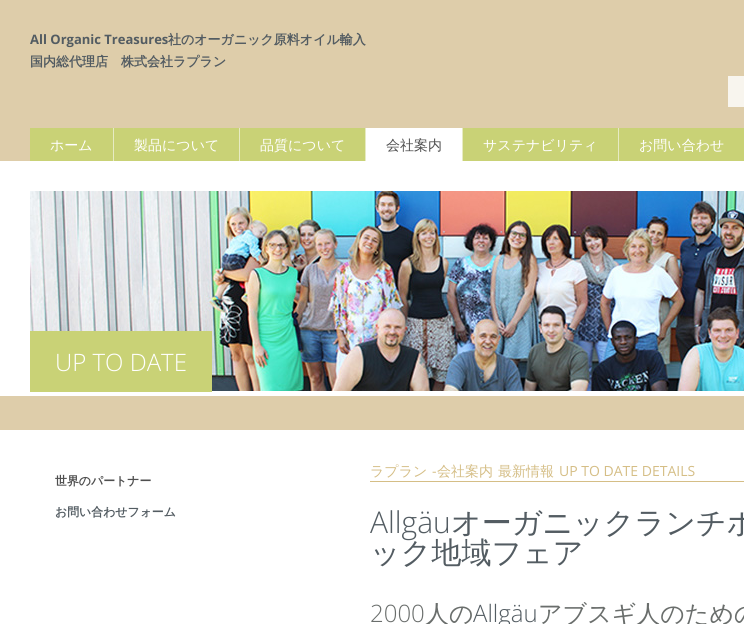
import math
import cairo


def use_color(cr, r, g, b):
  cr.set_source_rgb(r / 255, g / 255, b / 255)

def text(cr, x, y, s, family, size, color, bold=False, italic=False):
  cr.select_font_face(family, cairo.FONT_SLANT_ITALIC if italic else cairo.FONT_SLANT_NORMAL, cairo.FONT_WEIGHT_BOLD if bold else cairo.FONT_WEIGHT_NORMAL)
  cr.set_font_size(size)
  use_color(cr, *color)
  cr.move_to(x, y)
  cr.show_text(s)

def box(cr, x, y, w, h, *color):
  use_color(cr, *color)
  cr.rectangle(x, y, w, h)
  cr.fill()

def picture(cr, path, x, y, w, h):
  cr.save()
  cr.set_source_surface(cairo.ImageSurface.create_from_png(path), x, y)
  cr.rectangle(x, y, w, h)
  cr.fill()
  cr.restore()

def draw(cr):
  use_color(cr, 222, 205, 170)
  cr.paint()
  box(cr, 728, 76, 16, 31, 248, 245, 238)
  box(cr, 30, 128, 714, 33, 201, 210, 118)
  box(cr, 113, 128, 1, 33, 231, 235, 195)
  box(cr, 239, 128, 1, 33, 231, 235, 195)
  box(cr, 365, 128, 1, 33, 231, 235, 195)
  box(cr, 366, 128, 96, 33, 255, 255, 255)
  box(cr, 462, 128, 1, 33, 231, 235, 195)
  box(cr, 618, 128, 1, 33, 231, 235, 195)
  box(cr, 0, 161, 744, 235, 255, 255, 255)
  picture(cr, "img_01.png", 30, 191, 714, 200)
  box(cr, 30, 331, 182, 61, 201, 210, 118)
  box(cr, 0, 430, 744, 194, 255, 255, 255)
  box(cr, 370, 481, 374, 1, 213, 190, 134)
  text(cr, 30, 44, "All Organic Treasures", "Open Sans", 13, (83, 92, 98), bold=True)
  text(cr, 168, 44, "社のオーガニック原料オイル輸入", "WenQuanYi Zen Hei", 13, (83, 92, 98), bold=True)
  text(cr, 30, 66, "国内総代理店　株式会社ラプラン", "WenQuanYi Zen Hei", 13, (83, 92, 98), bold=True)
  text(cr, 50, 150, "ホーム", "WenQuanYi Zen Hei Medium", 14, (255, 255, 255))
  text(cr, 134, 150, "製品について", "WenQuanYi Zen Hei Medium", 14, (255, 255, 255))
  text(cr, 260, 150, "品質について", "WenQuanYi Zen Hei Medium", 14, (255, 255, 255))
  text(cr, 386, 150, "会社案内", "WenQuanYi Zen Hei Medium", 14, (79, 79, 79))
  text(cr, 483, 150, "サステナビリティ", "WenQuanYi Zen Hei Medium", 14, (255, 255, 255))
  text(cr, 639, 150, "お問い合わせ", "WenQuanYi Zen Hei Medium", 14, (255, 255, 255))
  text(cr, 55, 371, "UP TO DATE", "Open Sans Light", 24, (255, 255, 255))
  text(cr, 55, 485, "世界のパートナー", "WenQuanYi Zen Hei", 11.9, (79, 79, 79), bold=True)
  text(cr, 55, 516, "お問い合わせフォーム", "WenQuanYi Zen Hei", 11.9, (83, 92, 98), bold=True)
  text(cr, 370, 476, "ラプラン", "WenQuanYi Zen Hei Medium", 14, (213, 190, 134))
  text(cr, 432, 476, "-", "Open Sans", 14, (213, 190, 134))
  text(cr, 437, 476, "会社案内", "WenQuanYi Zen Hei Medium", 14, (213, 190, 134))
  text(cr, 498, 476, "最新情報", "WenQuanYi Zen Hei Medium", 14, (213, 190, 134))
  text(cr, 559, 476, "UP TO DATE DETAILS", "Open Sans", 14, (213, 190, 134))
  text(cr, 370, 533, "Allgäu", "Open Sans Light", 30, (83, 92, 98))
  text(cr, 451, 533, "オーガニックランチボ", "WenQuanYi Zen Hei Medium", 30, (83, 92, 98))
  text(cr, 370, 563, "ック地域フェア", "WenQuanYi Zen Hei Medium", 30, (83, 92, 98))
  text(cr, 370, 622, "2000", "Open Sans Light", 24, (106, 110, 108))
  text(cr, 425, 622, "人の", "WenQuanYi Zen Hei Medium", 24, (106, 110, 108))
  text(cr, 473, 622, "Allgäu", "Open Sans Light", 24, (83, 92, 98))
  text(cr, 538, 622, "アブスギ人のための", "WenQuanYi Zen Hei Medium", 24, (106, 110, 108))


surface = cairo.ImageSurface(cairo.FORMAT_RGB24, 744, 624)
cr = cairo.Context(surface)
options = cairo.FontOptions()
options.set_hint_metrics(cairo.HINT_METRICS_OFF)
options.set_hint_style(cairo.HINT_STYLE_NONE)
cr.set_font_options(options)
cr.set_miter_limit(4)
draw(cr)
surface.write_to_png("out.png")
